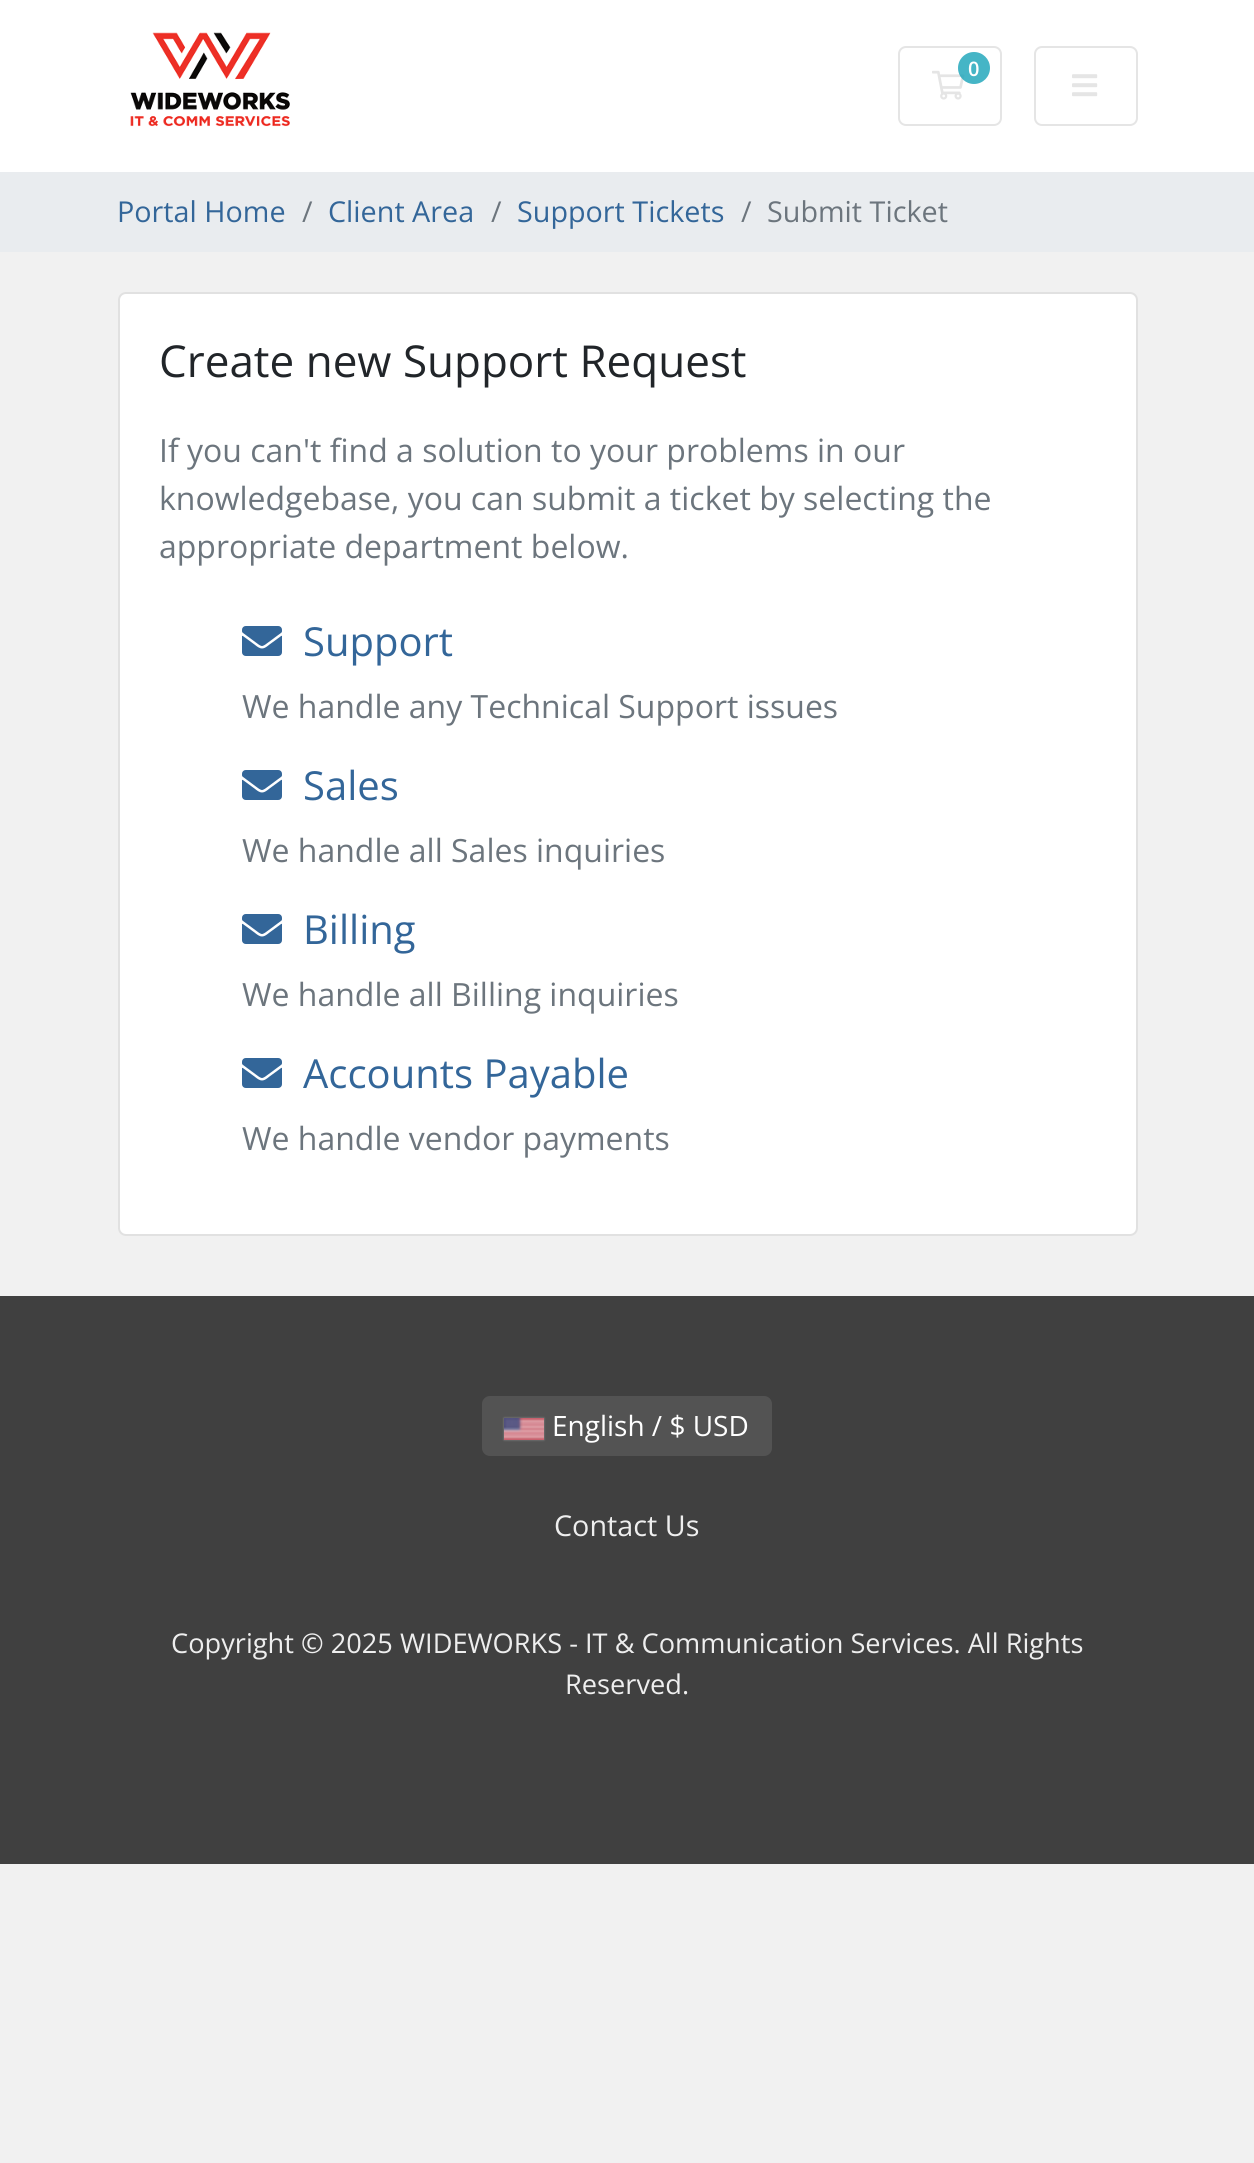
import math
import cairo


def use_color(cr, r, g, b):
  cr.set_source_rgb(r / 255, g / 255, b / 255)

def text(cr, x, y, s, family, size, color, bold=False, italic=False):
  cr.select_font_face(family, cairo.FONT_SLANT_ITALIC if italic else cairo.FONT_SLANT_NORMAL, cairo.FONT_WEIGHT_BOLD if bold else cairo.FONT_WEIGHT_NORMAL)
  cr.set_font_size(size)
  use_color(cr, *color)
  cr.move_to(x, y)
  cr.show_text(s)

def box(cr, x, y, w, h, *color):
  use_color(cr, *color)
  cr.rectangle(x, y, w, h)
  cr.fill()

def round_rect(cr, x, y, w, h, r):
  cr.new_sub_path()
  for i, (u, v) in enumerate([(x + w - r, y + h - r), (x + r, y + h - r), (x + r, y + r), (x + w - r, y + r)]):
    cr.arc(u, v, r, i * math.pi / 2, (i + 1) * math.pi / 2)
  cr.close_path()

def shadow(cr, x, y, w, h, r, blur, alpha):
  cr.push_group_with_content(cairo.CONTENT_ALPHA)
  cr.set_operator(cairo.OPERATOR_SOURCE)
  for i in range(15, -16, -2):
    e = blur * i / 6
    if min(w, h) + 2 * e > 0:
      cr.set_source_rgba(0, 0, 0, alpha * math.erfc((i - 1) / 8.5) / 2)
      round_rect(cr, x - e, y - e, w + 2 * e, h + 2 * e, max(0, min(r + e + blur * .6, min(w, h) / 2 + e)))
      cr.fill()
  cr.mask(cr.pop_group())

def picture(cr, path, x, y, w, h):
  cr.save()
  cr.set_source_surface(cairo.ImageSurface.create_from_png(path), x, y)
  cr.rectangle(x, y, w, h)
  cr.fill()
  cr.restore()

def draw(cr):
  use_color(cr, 241, 241, 241)
  cr.paint()
  box(cr, 0, 0, 1254, 172, 255, 255, 255)
  picture(cr, "img_01.png", 130, 32, 160, 95)
  round_rect(cr, 899, 47, 102, 78, 7)
  use_color(cr, 229, 229, 229)
  cr.stroke()
  picture(cr, "img_02.png", 932, 70, 33, 30)
  cr.set_source_rgba(0.09, 0.635, 0.722, 0.8)
  cr.arc(974, 68, 16, 0, 2 * math.pi)
  cr.fill()
  round_rect(cr, 1035, 47, 102, 78, 7)
  use_color(cr, 229, 229, 229)
  cr.stroke()
  picture(cr, "img_03.png", 1072, 74, 26, 23)
  box(cr, 0, 172, 1254, 80, 233, 236, 239)
  use_color(cr, 255, 255, 255)
  round_rect(cr, 118, 292, 1020, 944, 8)
  cr.fill()
  round_rect(cr, 119, 293, 1018, 942, 7)
  cr.set_source_rgba(0, 0, 0, 0.12)
  cr.stroke()
  picture(cr, "img_04.png", 242, 626, 40, 30)
  picture(cr, "img_04.png", 242, 770, 40, 30)
  picture(cr, "img_04.png", 242, 914, 40, 30)
  picture(cr, "img_04.png", 242, 1058, 40, 30)
  box(cr, 0, 1296, 1254, 568, 64, 64, 64)
  use_color(cr, 83, 83, 83)
  round_rect(cr, 482, 1396, 290, 60, 8)
  cr.fill()
  use_color(cr, 136, 136, 136)
  shadow(cr, 504, 1418, 40, 22, 0, 1, 1)
  picture(cr, "img_05.png", 504, 1418, 40, 22)
  text(cr, 968, 76, "0", "Open Sans SemiBold", 20, (255, 255, 255))
  text(cr, 117, 222, "Portal Home", "Open Sans", 28.75, (51, 102, 153))
  text(cr, 302, 222, "/", "Open Sans", 28.75, (108, 117, 125))
  text(cr, 328, 222, "Client Area", "Open Sans", 28.75, (51, 102, 153))
  text(cr, 491, 222, "/", "Open Sans", 28.75, (108, 117, 125))
  text(cr, 517, 222, "Support Tickets", "Open Sans", 28.75, (51, 102, 153))
  text(cr, 741, 222, "/", "Open Sans", 28.75, (108, 117, 125))
  text(cr, 767, 222, "Submit Ticket", "Open Sans", 28.75, (108, 117, 125))
  text(cr, 159, 377, "Create new Support Request", "Open Sans", 44, (33, 37, 41))
  text(cr, 159, 462, "If you can't find a solution to your problems in our", "Open Sans", 32, (108, 117, 125))
  text(cr, 159, 510, "knowledgebase, you can submit a ticket by selecting the", "Open Sans", 32, (108, 117, 125))
  text(cr, 159, 558, "appropriate department below.", "Open Sans", 32, (108, 117, 125))
  text(cr, 303, 656, "Support", "Open Sans", 40, (51, 102, 153))
  text(cr, 242, 718, "We handle any Technical Support issues", "Open Sans", 32, (108, 117, 125))
  text(cr, 303, 800, "Sales", "Open Sans", 40, (51, 102, 153))
  text(cr, 242, 862, "We handle all Sales inquiries", "Open Sans", 32, (108, 117, 125))
  text(cr, 303, 944, "Billing", "Open Sans", 40, (51, 102, 153))
  text(cr, 242, 1006, "We handle all Billing inquiries", "Open Sans", 32, (108, 117, 125))
  text(cr, 303, 1088, "Accounts Payable", "Open Sans", 40, (51, 102, 153))
  text(cr, 242, 1150, "We handle vendor payments", "Open Sans", 32, (108, 117, 125))
  text(cr, 552, 1436, "English / $ USD", "Open Sans", 28, (255, 255, 255))
  text(cr, 554, 1536, "Contact Us", "Open Sans", 28.75, (238, 238, 238))
  text(cr, 171, 1653, "Copyright © 2025 WIDEWORKS - IT & Communication Services. All Rights", "Open Sans", 27.2, (238, 238, 238))
  text(cr, 565, 1694, "Reserved.", "Open Sans", 27.2, (238, 238, 238))


surface = cairo.ImageSurface(cairo.FORMAT_RGB24, 1254, 2163)
cr = cairo.Context(surface)
options = cairo.FontOptions()
options.set_hint_metrics(cairo.HINT_METRICS_OFF)
options.set_hint_style(cairo.HINT_STYLE_NONE)
cr.set_font_options(options)
cr.set_miter_limit(4)
draw(cr)
surface.write_to_png("out.png")
